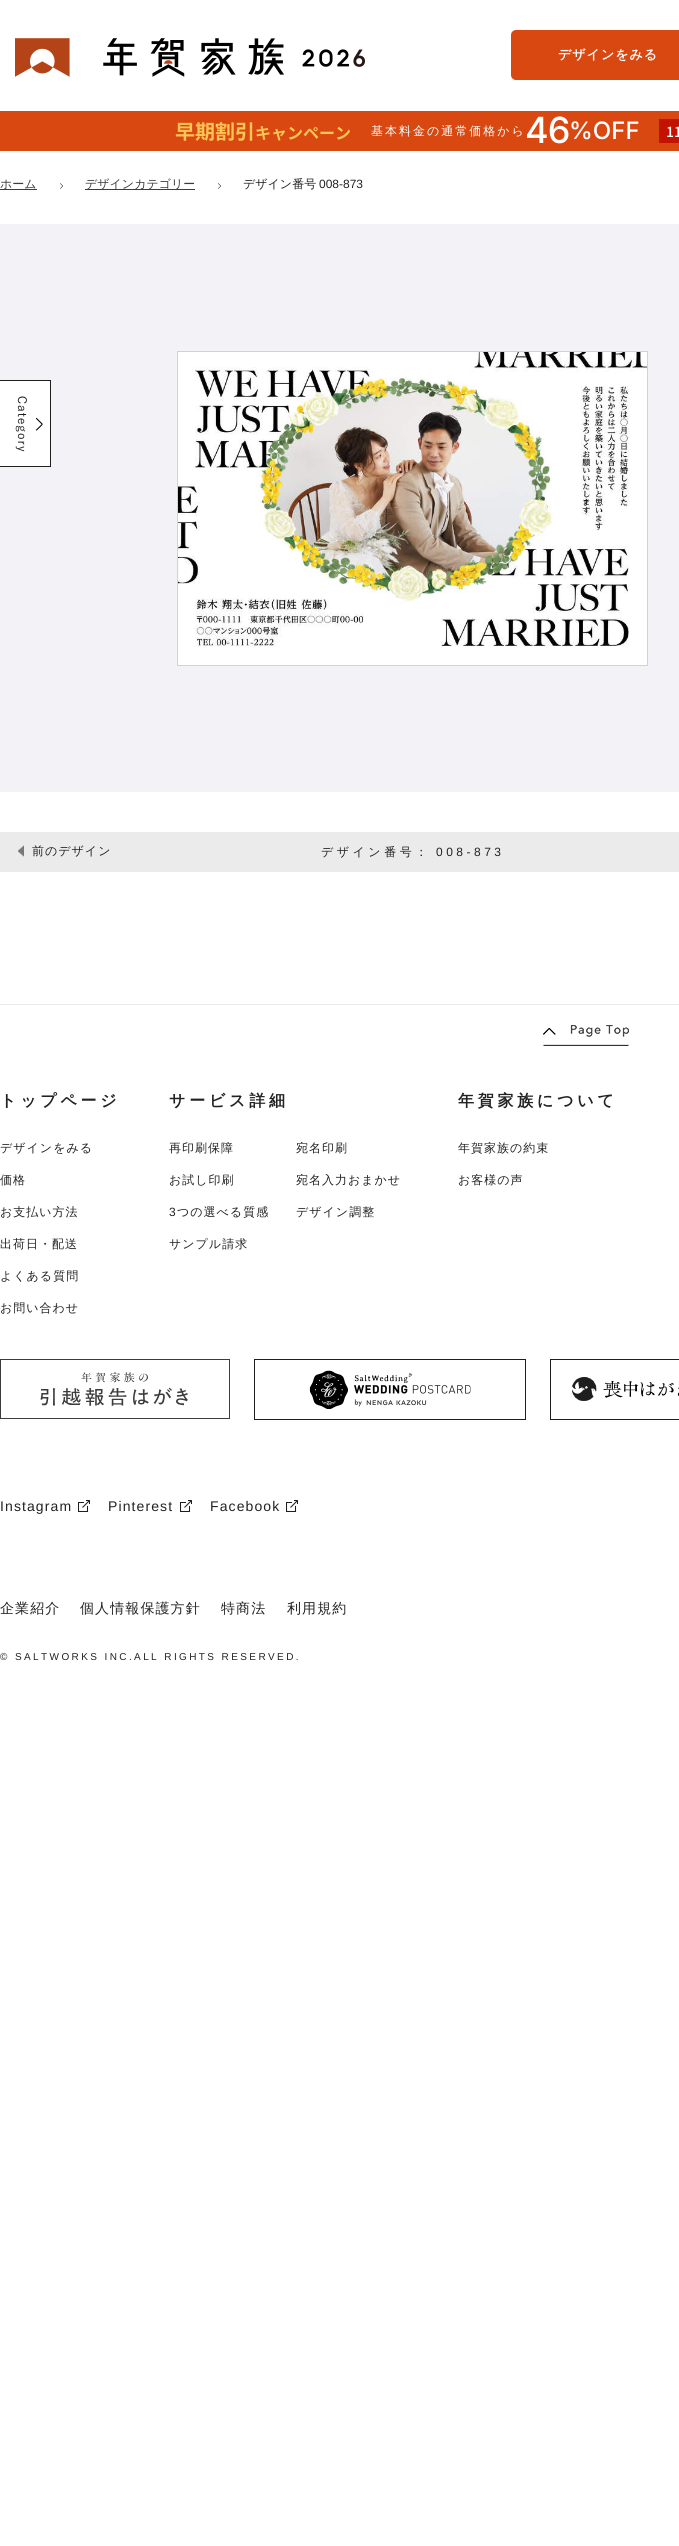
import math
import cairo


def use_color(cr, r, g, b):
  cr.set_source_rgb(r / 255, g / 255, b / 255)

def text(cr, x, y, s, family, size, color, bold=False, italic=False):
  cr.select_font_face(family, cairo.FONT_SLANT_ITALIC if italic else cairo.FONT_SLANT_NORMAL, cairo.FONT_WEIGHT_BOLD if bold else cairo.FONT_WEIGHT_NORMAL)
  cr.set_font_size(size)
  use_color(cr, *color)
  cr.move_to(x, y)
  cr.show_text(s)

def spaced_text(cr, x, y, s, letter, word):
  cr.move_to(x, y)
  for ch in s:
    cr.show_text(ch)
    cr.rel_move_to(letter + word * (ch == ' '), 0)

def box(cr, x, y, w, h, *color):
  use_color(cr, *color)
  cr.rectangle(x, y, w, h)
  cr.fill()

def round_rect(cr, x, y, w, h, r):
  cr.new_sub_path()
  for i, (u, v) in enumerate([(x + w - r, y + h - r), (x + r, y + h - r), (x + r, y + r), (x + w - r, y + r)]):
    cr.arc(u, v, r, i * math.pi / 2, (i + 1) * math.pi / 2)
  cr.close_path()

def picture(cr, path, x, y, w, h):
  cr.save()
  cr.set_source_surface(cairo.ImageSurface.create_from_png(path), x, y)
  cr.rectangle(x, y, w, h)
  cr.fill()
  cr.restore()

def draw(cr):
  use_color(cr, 255, 255, 255)
  cr.paint()
  picture(cr, "img_01.png", 15, 38, 350, 39)
  use_color(cr, 216, 72, 16)
  round_rect(cr, 511, 30, 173, 50, 5)
  cr.fill()
  box(cr, 0, 111, 679, 40, 216, 72, 16)
  box(cr, 659, 119, 20, 24, 193, 19, 0)
  box(cr, 0, 189, 37, 1, 60, 60, 60)
  picture(cr, "img_02.png", 60, 183, 3, 6)
  box(cr, 85, 189, 110, 1, 60, 60, 60)
  picture(cr, "img_02.png", 218, 183, 3, 6)
  box(cr, 0, 224, 679, 568, 243, 243, 247)
  picture(cr, "img_03.png", 178, 352, 469, 313)
  cr.rectangle(177.5, 351.5, 470, 314)
  use_color(cr, 210, 210, 210)
  cr.set_line_width(1)
  cr.stroke()
  box(cr, 0, 832, 679, 40, 235, 235, 235)
  picture(cr, "img_04.png", 18, 845, 6, 12)
  box(cr, 0, 1004, 679, 1, 235, 235, 235)
  picture(cr, "img_05.png", 543, 1025, 86, 21)
  picture(cr, "img_06.png", 0, 1359, 230, 60)
  picture(cr, "img_07.png", 254, 1359, 272, 61)
  picture(cr, "img_08.png", 550, 1359, 129, 61)
  picture(cr, "img_09.png", 78, 1500, 12, 12)
  picture(cr, "img_09.png", 180, 1500, 12, 12)
  picture(cr, "img_09.png", 286, 1500, 12, 12)
  box(cr, 0, 381, 50, 85, 255, 255, 255)
  picture(cr, "img_10.png", 0, 380, 51, 87)
  cr.select_font_face("WenQuanYi Zen Hei", cairo.FONT_SLANT_NORMAL, cairo.FONT_WEIGHT_BOLD)
  cr.set_font_size(13)
  spaced_text(cr, 558, 59, "デザインをみる", 1, 0)
  text(cr, 175, 139, "早期割引", "Noto Sans JP", 20, (253, 197, 85), bold=True)
  text(cr, 255, 139, "キャンペーン", "Noto Sans JP", 16, (253, 197, 85), bold=True)
  cr.select_font_face("WenQuanYi Zen Hei Medium")
  cr.set_font_size(12)
  use_color(cr, 255, 255, 255)
  spaced_text(cr, 371, 135, "基本料金の通常価格から", 2, 0)
  cr.select_font_face("Inter Medium")
  cr.set_font_size(36)
  spaced_text(cr, 525, 143, "46", -1, 0)
  text(cr, 569, 139, "%OFF", "Inter Medium", 24, (255, 255, 255))
  text(cr, 666, 137, "11", "Noto Sans JP Medium", 14, (255, 255, 255))
  text(cr, 0, 188, "ホーム", "WenQuanYi Zen Hei Medium", 12, (60, 60, 60))
  text(cr, 85, 188, "デザインカテゴリー", "WenQuanYi Zen Hei Medium", 12, (60, 60, 60))
  text(cr, 243, 188, "デザイン番号", "WenQuanYi Zen Hei Medium", 12, (34, 34, 34))
  text(cr, 319, 188, "008-873", "Liberation Sans", 12, (34, 34, 34))
  cr.select_font_face("WenQuanYi Zen Hei Medium")
  spaced_text(cr, 32, 855, "前のデザイン", 1, 0)
  spaced_text(cr, 321, 856, "デザイン番号：", 3.5, 0)
  cr.select_font_face("Liberation Sans")
  spaced_text(cr, 436, 856, "008-873", 3.5, 0)
  cr.select_font_face("WenQuanYi Zen Hei", cairo.FONT_SLANT_NORMAL, cairo.FONT_WEIGHT_BOLD)
  cr.set_font_size(16)
  spaced_text(cr, 0, 1106, "トップページ", 3.75, 0)
  cr.select_font_face("WenQuanYi Zen Hei Medium")
  cr.set_font_size(12)
  spaced_text(cr, 0, 1152, "デザインをみる", 1, 0)
  spaced_text(cr, 0, 1184, "価格", 1, 0)
  spaced_text(cr, 0, 1216, "お支払い方法", 1, 0)
  spaced_text(cr, 0, 1248, "出荷日・配送", 1, 0)
  spaced_text(cr, 0, 1280, "よくある質問", 1, 0)
  spaced_text(cr, 0, 1312, "お問い合わせ", 1, 0)
  cr.select_font_face("WenQuanYi Zen Hei", cairo.FONT_SLANT_NORMAL, cairo.FONT_WEIGHT_BOLD)
  cr.set_font_size(16)
  spaced_text(cr, 169, 1106, "サービス詳細", 3.75, 0)
  cr.select_font_face("WenQuanYi Zen Hei Medium")
  cr.set_font_size(12)
  spaced_text(cr, 169, 1152, "再印刷保障", 1, 0)
  spaced_text(cr, 296, 1152, "宛名印刷", 1, 0)
  spaced_text(cr, 169, 1184, "お試し印刷", 1, 0)
  spaced_text(cr, 296, 1184, "宛名入力おまかせ", 1, 0)
  cr.select_font_face("Liberation Sans")
  spaced_text(cr, 169, 1216, "3", 1, 0)
  cr.select_font_face("WenQuanYi Zen Hei Medium")
  spaced_text(cr, 177, 1216, "つの選べる質感", 1, 0)
  spaced_text(cr, 296, 1216, "デザイン調整", 1, 0)
  spaced_text(cr, 169, 1248, "サンプル請求", 1, 0)
  cr.select_font_face("WenQuanYi Zen Hei", cairo.FONT_SLANT_NORMAL, cairo.FONT_WEIGHT_BOLD)
  cr.set_font_size(16)
  spaced_text(cr, 458, 1106, "年賀家族について", 3.75, 0)
  cr.select_font_face("WenQuanYi Zen Hei Medium")
  cr.set_font_size(12)
  spaced_text(cr, 458, 1152, "年賀家族の約束", 1, 0)
  spaced_text(cr, 458, 1184, "お客様の声", 1, 0)
  cr.select_font_face("Liberation Sans")
  cr.set_font_size(14)
  spaced_text(cr, 0, 1511, "Instagram", 1.1, 0)
  spaced_text(cr, 108, 1511, "Pinterest", 1.1, 0)
  spaced_text(cr, 210, 1511, "Facebook", 1.1, 0)
  cr.select_font_face("WenQuanYi Zen Hei Medium")
  spaced_text(cr, 0, 1613, "企業紹介", 1.1, 0)
  spaced_text(cr, 80, 1613, "個人情報保護方針", 1.1, 0)
  spaced_text(cr, 221, 1613, "特商法", 1.1, 0)
  spaced_text(cr, 287, 1613, "利用規約", 1.1, 0)
  cr.select_font_face("Liberation Sans")
  cr.set_font_size(10)
  spaced_text(cr, 0, 1660, "© SALTWORKS INC.ALL RIGHTS RESERVED.", 2.4, 0)


surface = cairo.ImageSurface(cairo.FORMAT_RGB24, 679, 2546)
cr = cairo.Context(surface)
options = cairo.FontOptions()
options.set_hint_metrics(cairo.HINT_METRICS_OFF)
options.set_hint_style(cairo.HINT_STYLE_NONE)
cr.set_font_options(options)
cr.set_miter_limit(4)
draw(cr)
surface.write_to_png("out.png")
